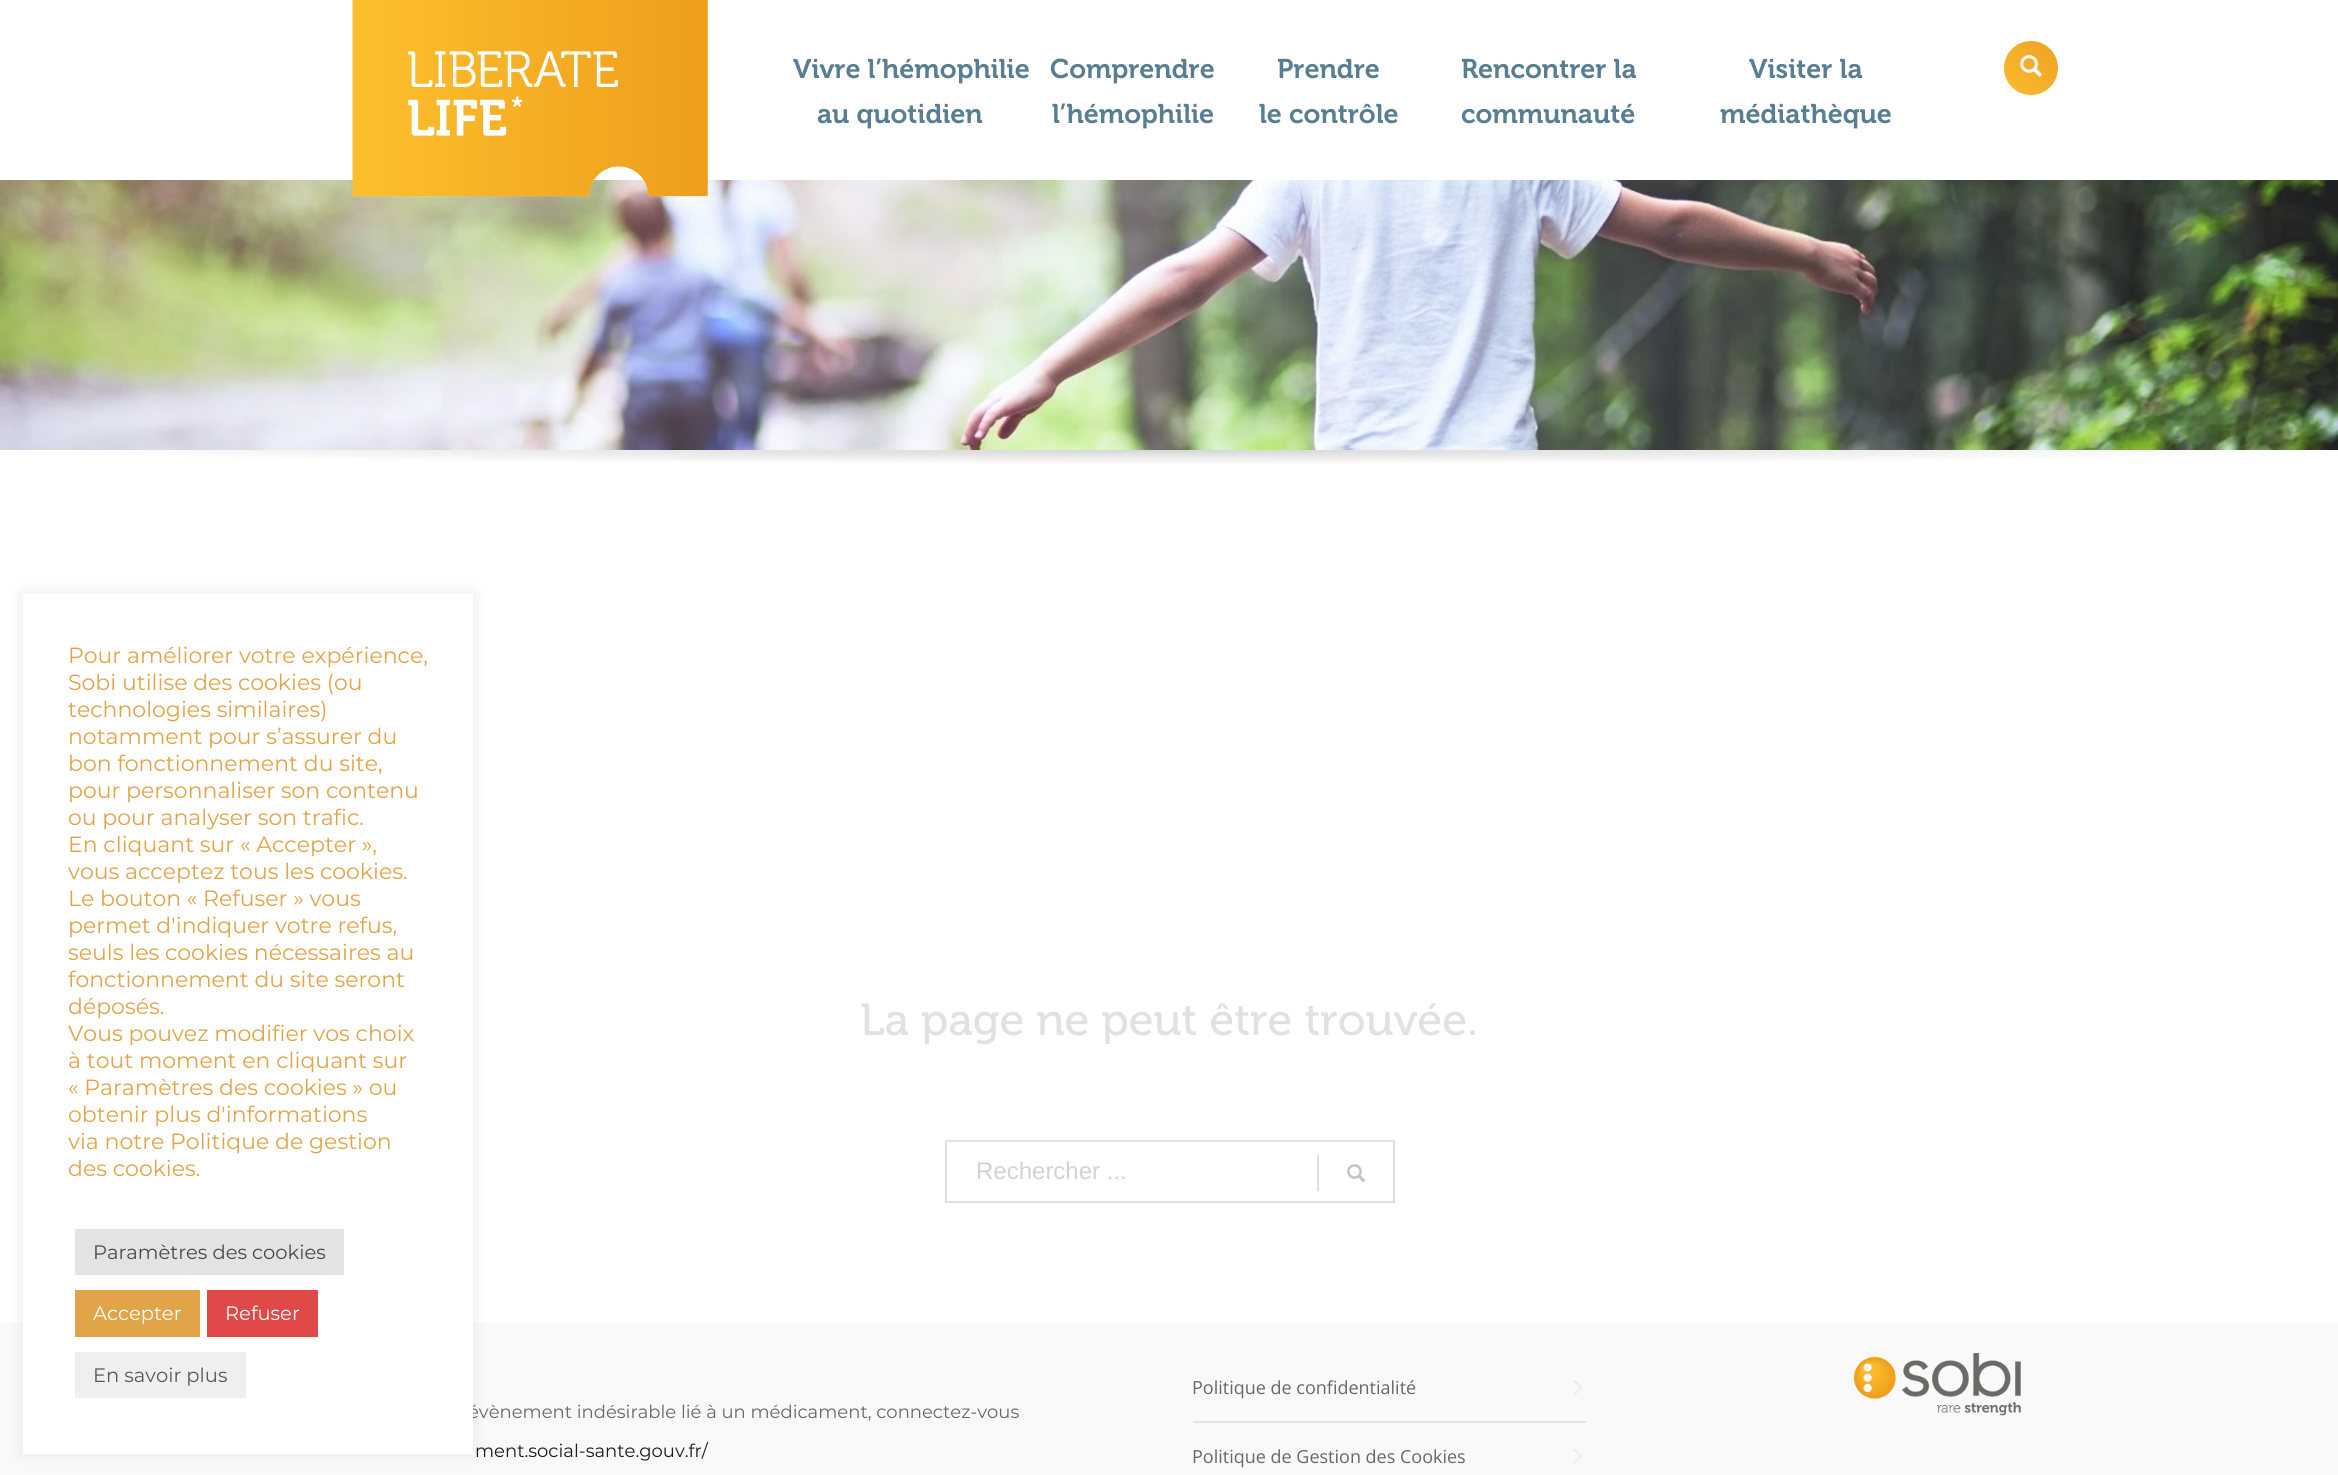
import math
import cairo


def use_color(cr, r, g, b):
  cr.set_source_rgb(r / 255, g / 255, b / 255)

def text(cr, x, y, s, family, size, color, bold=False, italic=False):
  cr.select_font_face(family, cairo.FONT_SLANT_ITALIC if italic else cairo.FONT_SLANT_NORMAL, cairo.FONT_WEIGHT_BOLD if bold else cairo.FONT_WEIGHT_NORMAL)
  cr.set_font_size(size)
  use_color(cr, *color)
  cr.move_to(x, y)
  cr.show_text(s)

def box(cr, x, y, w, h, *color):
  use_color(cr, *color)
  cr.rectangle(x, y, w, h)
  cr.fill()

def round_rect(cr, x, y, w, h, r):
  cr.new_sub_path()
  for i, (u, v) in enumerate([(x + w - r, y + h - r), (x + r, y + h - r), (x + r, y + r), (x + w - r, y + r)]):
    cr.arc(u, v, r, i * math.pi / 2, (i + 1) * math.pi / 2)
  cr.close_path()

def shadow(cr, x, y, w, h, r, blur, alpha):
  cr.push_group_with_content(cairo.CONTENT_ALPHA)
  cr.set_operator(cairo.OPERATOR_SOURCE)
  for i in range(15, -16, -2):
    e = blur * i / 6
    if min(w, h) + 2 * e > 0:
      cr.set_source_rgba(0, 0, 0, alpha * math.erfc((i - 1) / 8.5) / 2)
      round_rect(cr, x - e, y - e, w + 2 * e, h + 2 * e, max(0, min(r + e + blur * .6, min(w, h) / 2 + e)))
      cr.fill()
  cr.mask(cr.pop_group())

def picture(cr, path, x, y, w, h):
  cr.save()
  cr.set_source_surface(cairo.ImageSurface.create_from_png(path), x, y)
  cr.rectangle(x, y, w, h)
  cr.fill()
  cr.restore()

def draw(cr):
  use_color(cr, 255, 255, 255)
  cr.paint()
  box(cr, 0, 1323, 2338, 152, 249, 249, 249)
  use_color(cr, 181, 180, 180)
  shadow(cr, 23, 593, 450, 859, 0, 7.5, 0.3)
  picture(cr, "img_03.png", 0, 180, 2338, 270)
  picture(cr, "img_01.png", 352, 0, 356, 197)
  gradient = cairo.LinearGradient(2005, 95, 2059, 41)
  gradient.add_color_stop_rgba(0, 0.984, 0.733, 0.173, 1)
  gradient.add_color_stop_rgba(1, 0.937, 0.631, 0.149, 1)
  cr.set_source(gradient)
  cr.arc(2031, 68, 27, 0, 2 * math.pi)
  cr.fill()
  picture(cr, "img_02.png", 2020, 55, 22, 22)
  gradient = cairo.RadialGradient(0, 0, 0, 0, 0, 1)
  gradient.set_matrix(cairo.Matrix(1 / 1654, 0, 0, 1 / 21, -1 * 1169 / 1654, -1 * 450 / 21))
  gradient.add_color_stop_rgba(0, 0.839, 0.839, 0.839, 1)
  gradient.add_color_stop_rgba(0.7, 1, 1, 1, 1)
  cr.set_source(gradient)
  cr.rectangle(93, 450, 2152, 14)
  cr.fill()
  cr.rectangle(946, 1141, 448, 61)
  use_color(cr, 225, 225, 225)
  cr.stroke()
  box(cr, 1317, 1155, 2, 36, 225, 225, 225)
  picture(cr, "img_04.png", 1347, 1164, 18, 18)
  box(cr, 1193, 1421, 393, 2, 227, 227, 227)
  picture(cr, "img_05.png", 1572, 1380, 11, 15)
  picture(cr, "img_05.png", 1572, 1449, 11, 15)
  picture(cr, "img_06.png", 1854, 1353, 167, 63)
  text(cr, 793, 78, "Vivre l’hémophilie", "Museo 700 SemiBold", 27, (87, 126, 146))
  text(cr, 817, 123, "au quotidien", "Museo 700 SemiBold", 27, (87, 126, 146))
  text(cr, 1050, 78, "Comprendre", "Museo 700 SemiBold", 27, (87, 126, 146))
  text(cr, 1052, 123, "l’hémophilie", "Museo 700 SemiBold", 27, (87, 126, 146))
  text(cr, 1277, 78, "Prendre", "Museo 700 SemiBold", 27, (87, 126, 146))
  text(cr, 1259, 123, "le contrôle", "Museo 700 SemiBold", 27, (87, 126, 146))
  text(cr, 1461, 78, "Rencontrer la", "Museo 700 SemiBold", 27, (87, 126, 146))
  text(cr, 1461, 123, "communauté", "Museo 700 SemiBold", 27, (87, 126, 146))
  text(cr, 1749, 78, "Visiter la", "Museo 700 SemiBold", 27, (87, 126, 146))
  text(cr, 1720, 123, "médiathèque", "Museo 700 SemiBold", 27, (87, 126, 146))
  text(cr, 860, 1035, "La page ne peut être trouvée.", "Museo", 45, (225, 225, 225))
  text(cr, 976, 1179, "Rechercher ...", "Liberation Sans", 24, (210, 210, 210))
  text(cr, 468, 1418, "évènement indésirable lié à un médicament, connectez-vous", "Montserrat", 18, (104, 104, 104))
  box(cr, 23, 594, 450, 860, 255, 255, 255)
  box(cr, 75, 1352, 171, 46, 239, 239, 239)
  text(cr, 93, 1382, "En savoir plus", "Montserrat", 19.5, (89, 89, 89))
  box(cr, 207, 1290, 111, 47, 225, 73, 73)
  text(cr, 225, 1320, "Refuser", "Montserrat", 19.5, (255, 255, 255))
  box(cr, 75, 1290, 125, 47, 225, 164, 73)
  text(cr, 93, 1320, "Accepter", "Montserrat", 19.5, (255, 255, 255))
  box(cr, 75, 1229, 269, 46, 226, 227, 227)
  text(cr, 93, 1259, "Paramètres des cookies", "Montserrat", 19.5, (73, 73, 73))
  text(cr, 68, 1176, "des cookies.", "Montserrat", 22, (225, 164, 73))
  text(cr, 68, 1149, "via notre Politique de gestion", "Montserrat", 22, (225, 164, 73))
  text(cr, 68, 1122, "obtenir plus d'informations", "Montserrat", 22, (225, 164, 73))
  text(cr, 68, 1095, "« Paramètres des cookies » ou", "Montserrat", 22, (225, 164, 73))
  text(cr, 68, 1068, "à tout moment en cliquant sur", "Montserrat", 22, (225, 164, 73))
  text(cr, 68, 1041, "Vous pouvez modifier vos choix", "Montserrat", 22, (225, 164, 73))
  text(cr, 68, 1014, "déposés.", "Montserrat", 22, (225, 164, 73))
  text(cr, 68, 987, "fonctionnement du site seront", "Montserrat", 22, (225, 164, 73))
  text(cr, 68, 960, "seuls les cookies nécessaires au", "Montserrat", 22, (225, 164, 73))
  text(cr, 68, 933, "permet d'indiquer votre refus,", "Montserrat", 22, (225, 164, 73))
  text(cr, 68, 906, "Le bouton « Refuser » vous", "Montserrat", 22, (225, 164, 73))
  text(cr, 68, 879, "vous acceptez tous les cookies.", "Montserrat", 22, (225, 164, 73))
  text(cr, 68, 852, "En cliquant sur « Accepter »,", "Montserrat", 22, (225, 164, 73))
  text(cr, 68, 825, "ou pour analyser son trafic.", "Montserrat", 22, (225, 164, 73))
  text(cr, 68, 798, "pour personnaliser son contenu", "Montserrat", 22, (225, 164, 73))
  text(cr, 68, 771, "bon fonctionnement du site,", "Montserrat", 22, (225, 164, 73))
  text(cr, 68, 744, "notamment pour s’assurer du", "Montserrat", 22, (225, 164, 73))
  text(cr, 68, 717, "technologies similaires)", "Montserrat", 22, (225, 164, 73))
  text(cr, 68, 690, "Sobi utilise des cookies (ou", "Montserrat", 22, (225, 164, 73))
  text(cr, 68, 663, "Pour améliorer votre expérience,", "Montserrat", 22, (225, 164, 73))
  text(cr, 475, 1457, "ment.social-sante.gouv.fr/", "Montserrat", 18, (28, 28, 28))
  text(cr, 1192, 1394, "Politique de confidentialité", "Open Sans", 18, (104, 104, 104))
  text(cr, 1192, 1463, "Politique de Gestion des Cookies", "Open Sans", 18, (104, 104, 104))


surface = cairo.ImageSurface(cairo.FORMAT_RGB24, 2338, 1475)
cr = cairo.Context(surface)
options = cairo.FontOptions()
options.set_hint_metrics(cairo.HINT_METRICS_OFF)
options.set_hint_style(cairo.HINT_STYLE_NONE)
cr.set_font_options(options)
cr.set_miter_limit(4)
draw(cr)
surface.write_to_png("out.png")
